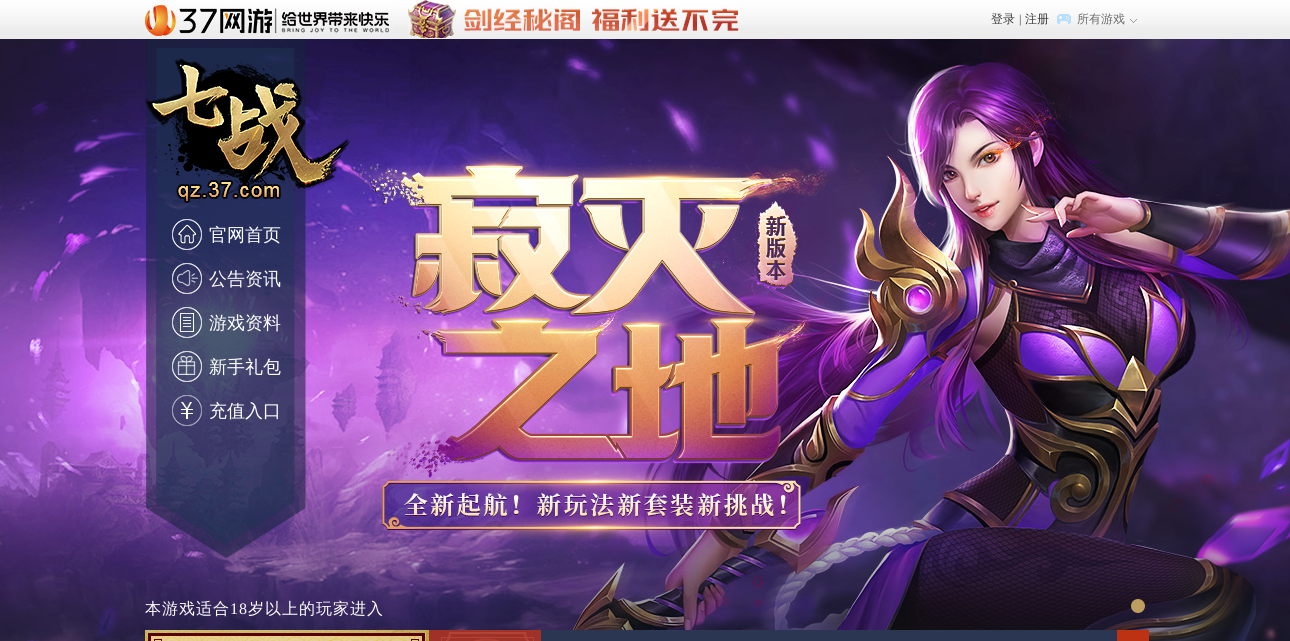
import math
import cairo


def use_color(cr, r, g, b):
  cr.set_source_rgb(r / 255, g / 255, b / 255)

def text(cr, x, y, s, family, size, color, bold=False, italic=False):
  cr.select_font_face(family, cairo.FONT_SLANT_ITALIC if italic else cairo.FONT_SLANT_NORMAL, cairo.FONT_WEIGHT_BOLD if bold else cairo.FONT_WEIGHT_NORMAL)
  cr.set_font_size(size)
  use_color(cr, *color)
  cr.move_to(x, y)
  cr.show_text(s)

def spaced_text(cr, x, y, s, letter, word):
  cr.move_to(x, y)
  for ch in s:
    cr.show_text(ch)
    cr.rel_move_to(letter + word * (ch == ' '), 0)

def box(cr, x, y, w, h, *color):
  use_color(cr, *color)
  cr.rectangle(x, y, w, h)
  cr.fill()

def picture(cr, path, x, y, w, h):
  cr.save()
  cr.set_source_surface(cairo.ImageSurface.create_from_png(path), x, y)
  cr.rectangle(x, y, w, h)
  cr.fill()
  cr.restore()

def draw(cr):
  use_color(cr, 236, 236, 236)
  cr.paint()
  picture(cr, "img_01.png", 0, 0, 1290, 38)
  picture(cr, "img_02.png", 145, 0, 248, 38)
  picture(cr, "img_03.png", 408, 0, 331, 38)
  picture(cr, "img_04.png", 1057, 14, 14, 11)
  picture(cr, "img_05.png", 1130, 19, 7, 4)
  picture(cr, "img_06.png", 0, 39, 1290, 602)
  use_color(cr, 189, 157, 96)
  cr.arc(1138, 606, 7, 0, 2 * math.pi)
  cr.fill()
  picture(cr, "img_08.png", 144, 39, 169, 519)
  picture(cr, "img_07.png", 145, 57, 206, 146)
  picture(cr, "img_09.png", 172, 219, 30, 31)
  picture(cr, "img_10.png", 172, 263, 30, 31)
  picture(cr, "img_11.png", 172, 307, 30, 31)
  picture(cr, "img_12.png", 172, 351, 30, 31)
  picture(cr, "img_13.png", 172, 395, 30, 31)
  picture(cr, "img_14.png", 145, 630, 284, 11)
  box(cr, 429, 630, 688, 11, 42, 54, 82)
  picture(cr, "img_15.png", 429, 630, 112, 11)
  box(cr, 1117, 630, 32, 11, 189, 50, 18)
  text(cr, 991, 23, "登录", "WenQuanYi Zen Hei Medium", 12, (60, 60, 60))
  text(cr, 1019, 23, "|", "Liberation Serif", 12, (60, 60, 60))
  text(cr, 1025, 23, "注册", "WenQuanYi Zen Hei Medium", 12, (60, 60, 60))
  text(cr, 1077, 23, "所有游戏", "WenQuanYi Zen Hei Medium", 12, (108, 108, 108))
  text(cr, 209, 241, "官网首页", "WenQuanYi Zen Hei Medium", 18, (255, 255, 255))
  text(cr, 209, 285, "公告资讯", "WenQuanYi Zen Hei Medium", 18, (255, 255, 255))
  text(cr, 209, 329, "游戏资料", "WenQuanYi Zen Hei Medium", 18, (255, 255, 255))
  text(cr, 209, 373, "新手礼包", "WenQuanYi Zen Hei Medium", 18, (255, 255, 255))
  text(cr, 209, 417, "充值入口", "WenQuanYi Zen Hei Medium", 18, (255, 255, 255))
  cr.set_font_size(16)
  spaced_text(cr, 145, 614, "本游戏适合", 1, 0)
  cr.select_font_face("Liberation Serif")
  spaced_text(cr, 230, 614, "18", 1, 0)
  cr.select_font_face("WenQuanYi Zen Hei Medium")
  spaced_text(cr, 248, 614, "岁以上的玩家进入", 1, 0)


surface = cairo.ImageSurface(cairo.FORMAT_RGB24, 1290, 641)
cr = cairo.Context(surface)
options = cairo.FontOptions()
options.set_hint_metrics(cairo.HINT_METRICS_OFF)
options.set_hint_style(cairo.HINT_STYLE_NONE)
cr.set_font_options(options)
cr.set_miter_limit(4)
draw(cr)
surface.write_to_png("out.png")
